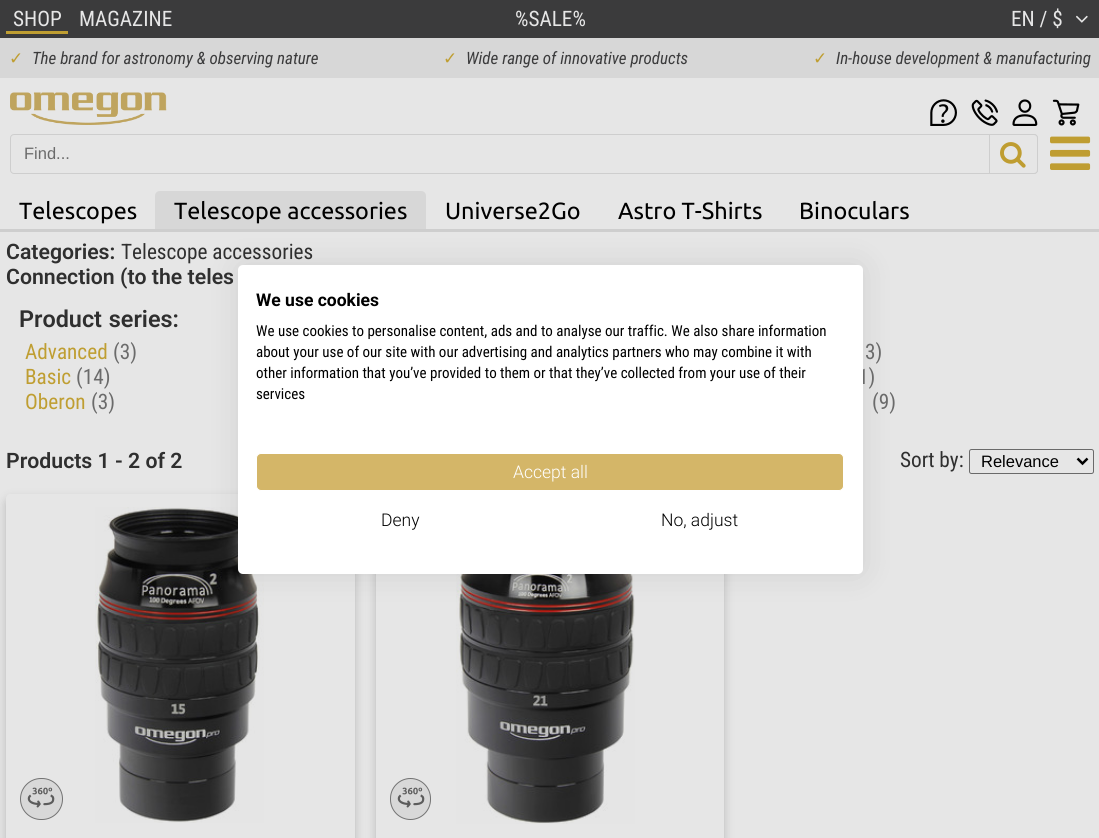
import math
import cairo


def use_color(cr, r, g, b):
  cr.set_source_rgb(r / 255, g / 255, b / 255)

def text(cr, x, y, s, family, size, color, bold=False, italic=False):
  cr.select_font_face(family, cairo.FONT_SLANT_ITALIC if italic else cairo.FONT_SLANT_NORMAL, cairo.FONT_WEIGHT_BOLD if bold else cairo.FONT_WEIGHT_NORMAL)
  cr.set_font_size(size)
  use_color(cr, *color)
  cr.move_to(x, y)
  cr.show_text(s)

def spaced_text(cr, x, y, s, letter, word):
  cr.move_to(x, y)
  for ch in s:
    cr.show_text(ch)
    cr.rel_move_to(letter + word * (ch == ' '), 0)

def box(cr, x, y, w, h, *color):
  use_color(cr, *color)
  cr.rectangle(x, y, w, h)
  cr.fill()

def round_rect(cr, x, y, w, h, r):
  cr.new_sub_path()
  for i, (u, v) in enumerate([(x + w - r, y + h - r), (x + r, y + h - r), (x + r, y + r), (x + w - r, y + r)]):
    cr.arc(u, v, r, i * math.pi / 2, (i + 1) * math.pi / 2)
  cr.close_path()

def shadow(cr, x, y, w, h, r, blur, alpha):
  cr.push_group_with_content(cairo.CONTENT_ALPHA)
  cr.set_operator(cairo.OPERATOR_SOURCE)
  for i in range(15, -16, -2):
    e = blur * i / 6
    if min(w, h) + 2 * e > 0:
      cr.set_source_rgba(0, 0, 0, alpha * math.erfc((i - 1) / 8.5) / 2)
      round_rect(cr, x - e, y - e, w + 2 * e, h + 2 * e, max(0, min(r + e + blur * .6, min(w, h) / 2 + e)))
      cr.fill()
  cr.mask(cr.pop_group())

def picture(cr, path, x, y, w, h):
  cr.save()
  cr.set_source_surface(cairo.ImageSurface.create_from_png(path), x, y)
  cr.rectangle(x, y, w, h)
  cr.fill()
  cr.restore()

def draw(cr):
  use_color(cr, 230, 230, 230)
  cr.paint()
  box(cr, 0, 0, 1099, 38, 59, 59, 60)
  box(cr, 6, 31, 62, 3, 191, 158, 50)
  picture(cr, "img_01.png", 1076, 15, 12, 8)
  box(cr, 0, 38, 1099, 40, 215, 215, 215)
  picture(cr, "img_02.png", 10, 92, 157, 33)
  picture(cr, "img_03.png", 930, 99, 27, 27)
  picture(cr, "img_04.png", 971, 99, 27, 27)
  picture(cr, "img_05.png", 1012, 99, 26, 27)
  picture(cr, "img_06.png", 1052, 99, 28, 27)
  round_rect(cr, 10.5, 134.5, 1027, 39, 3.5)
  use_color(cr, 206, 206, 206)
  cr.set_line_width(1)
  cr.stroke()
  use_color(cr, 230, 230, 230)
  cr.new_path()
  cr.move_to(989.5, 134.5)
  cr.line_to(1034, 134.5)
  cr.curve_to(1036, 134.5, 1037.5, 136, 1037.5, 138)
  cr.line_to(1037.5, 170)
  cr.curve_to(1037.5, 172, 1036, 173.5, 1034, 173.5)
  cr.line_to(989.5, 173.5)
  cr.close_path()
  cr.fill_preserve()
  use_color(cr, 206, 206, 206)
  cr.stroke()
  picture(cr, "img_07.png", 1000, 142, 26, 26)
  picture(cr, "img_08.png", 1050, 136, 41, 34)
  use_color(cr, 215, 215, 215)
  cr.new_path()
  cr.move_to(160, 191)
  cr.line_to(421, 191)
  cr.curve_to(424, 191, 426, 193, 426, 196)
  cr.line_to(426, 229)
  cr.line_to(155, 229)
  cr.line_to(155, 196)
  cr.curve_to(155, 193, 157, 191, 160, 191)
  cr.close_path()
  cr.fill()
  box(cr, 0, 229, 1099, 3, 206, 206, 206)
  round_rect(cr, 969.5, 449.5, 124, 24, 2)
  use_color(cr, 106, 106, 106)
  cr.stroke()
  cr.new_path()
  cr.move_to(1077.5, 458.5)
  cr.line_to(1082.5, 463.5)
  cr.line_to(1087.5, 458.5)
  use_color(cr, 0, 0, 0)
  cr.set_line_width(2.5)
  cr.stroke()
  cr.save()
  cr.set_fill_rule(cairo.FILL_RULE_EVEN_ODD)
  cr.new_path()
  cr.move_to(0, 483)
  cr.line_to(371, 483)
  cr.line_to(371, 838)
  cr.line_to(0, 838)
  cr.close_path()
  cr.move_to(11, 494)
  cr.line_to(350, 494)
  cr.curve_to(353, 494, 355, 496, 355, 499)
  cr.line_to(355, 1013)
  cr.curve_to(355, 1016, 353, 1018, 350, 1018)
  cr.line_to(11, 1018)
  cr.curve_to(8, 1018, 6, 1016, 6, 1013)
  cr.line_to(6, 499)
  cr.curve_to(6, 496, 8, 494, 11, 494)
  cr.close_path()
  cr.clip()
  use_color(cr, 0, 0, 0)
  shadow(cr, 6, 499, 349, 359, 5, 5, 0.2)
  cr.restore()
  use_color(cr, 216, 216, 216)
  round_rect(cr, 20.5, 778.5, 42, 41, 20.5)
  cr.fill_preserve()
  use_color(cr, 115, 115, 115)
  cr.set_line_width(1)
  cr.stroke()
  picture(cr, "img_09.png", 27, 787, 28, 21)
  picture(cr, "img_10.png", 95, 507, 169, 316)
  cr.save()
  cr.set_fill_rule(cairo.FILL_RULE_EVEN_ODD)
  cr.new_path()
  cr.move_to(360, 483)
  cr.line_to(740, 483)
  cr.line_to(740, 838)
  cr.line_to(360, 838)
  cr.close_path()
  cr.move_to(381, 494)
  cr.line_to(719, 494)
  cr.curve_to(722, 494, 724, 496, 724, 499)
  cr.line_to(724, 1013)
  cr.curve_to(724, 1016, 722, 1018, 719, 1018)
  cr.line_to(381, 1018)
  cr.curve_to(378, 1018, 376, 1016, 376, 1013)
  cr.line_to(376, 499)
  cr.curve_to(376, 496, 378, 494, 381, 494)
  cr.close_path()
  cr.clip()
  use_color(cr, 0, 0, 0)
  shadow(cr, 376, 499, 348, 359, 5, 5, 0.2)
  cr.restore()
  use_color(cr, 216, 216, 216)
  round_rect(cr, 390.5, 778.5, 40, 41, 20)
  cr.fill_preserve()
  use_color(cr, 115, 115, 115)
  cr.stroke()
  picture(cr, "img_09.png", 397, 787, 28, 21)
  picture(cr, "img_11.png", 456, 574, 179, 250)
  use_color(cr, 0, 0, 0)
  shadow(cr, 238, 265, 625, 309, 5, 15, 0.1)
  text(cr, 13, 26, "SHOP", "Roboto Condensed", 21.25, (230, 230, 230))
  text(cr, 79, 26, "MAGAZINE", "Roboto Condensed", 21.25, (230, 230, 230))
  text(cr, 515, 26, "%SALE%", "Roboto Condensed", 21.25, (230, 230, 230))
  text(cr, 1011, 26, "EN / $", "Roboto Condensed", 21.25, (230, 230, 230))
  text(cr, 9, 64, "✓", "DejaVu Sans", 17, (191, 158, 50))
  text(cr, 32, 64, "The brand for astronomy & observing nature", "Roboto Condensed", 17, (59, 59, 60), italic=True)
  text(cr, 443, 64, "✓", "DejaVu Sans", 17, (191, 158, 50))
  text(cr, 466, 64, "Wide range of innovative products", "Roboto Condensed", 17, (59, 59, 60), italic=True)
  text(cr, 813, 64, "✓", "DejaVu Sans", 17, (191, 158, 50))
  text(cr, 836, 64, "In-house development & manufacturing", "Roboto Condensed", 17, (59, 59, 60), italic=True)
  text(cr, 24, 159, "Find...", "Liberation Sans", 16.5, (107, 107, 107))
  text(cr, 19, 219, "Telescopes", "Ubuntu", 23.4, (0, 0, 0))
  text(cr, 174, 219, "Telescope accessories", "Ubuntu", 23.4, (0, 0, 0))
  text(cr, 445, 219, "Universe2Go", "Ubuntu", 23.4, (0, 0, 0))
  text(cr, 618, 219, "Astro T-Shirts", "Ubuntu", 23.4, (0, 0, 0))
  text(cr, 799, 219, "Binoculars", "Ubuntu", 23.4, (0, 0, 0))
  text(cr, 6, 259, "Categories:", "Roboto SemiBold", 21.25, (47, 47, 47))
  text(cr, 121, 259, "Telescope accessories", "Roboto Condensed", 21.25, (47, 47, 47))
  text(cr, 6, 284, "Connection (to the teles", "Roboto SemiBold", 21.25, (47, 47, 47))
  cr.set_font_size(23.4)
  spaced_text(cr, 19, 327, "Product series:", 0, 1)
  text(cr, 25, 359, "Advanced", "Roboto Condensed", 21.25, (191, 158, 50))
  text(cr, 113, 359, "(3)", "Roboto Condensed", 21.25, (107, 107, 107))
  text(cr, 25, 384, "Basic", "Roboto Condensed", 21.25, (191, 158, 50))
  text(cr, 76, 384, "(14)", "Roboto Condensed", 21.25, (107, 107, 107))
  text(cr, 25, 409, "Oberon", "Roboto Condensed", 21.25, (191, 158, 50))
  text(cr, 91, 409, "(3)", "Roboto Condensed", 21.25, (107, 107, 107))
  text(cr, 865, 359, "3)", "Roboto Condensed", 21.25, (107, 107, 107))
  text(cr, 858, 384, "1)", "Roboto Condensed", 21.25, (107, 107, 107))
  text(cr, 872, 409, "(9)", "Roboto Condensed", 21.25, (107, 107, 107))
  text(cr, 6, 468, "Products 1 - 2 of 2", "Roboto SemiBold", 21.25, (47, 47, 47))
  text(cr, 900, 467, "Sort by:", "Roboto Condensed", 21.25, (47, 47, 47))
  text(cr, 981, 467, "Relevance", "Liberation Sans", 16.5, (0, 0, 0))
  use_color(cr, 255, 255, 255)
  round_rect(cr, 238, 265, 625, 309, 5)
  cr.fill()
  text(cr, 256, 306, "We use cookies", "Roboto", 17.5, (0, 0, 0), bold=True)
  text(cr, 256, 336, "We use cookies to personalise content, ads and to analyse our traffic. We also share information", "Roboto Condensed", 15, (0, 0, 0))
  text(cr, 256, 357, "about your use of our site with our advertising and analytics partners who may combine it with", "Roboto Condensed", 15, (0, 0, 0))
  text(cr, 256, 378, "other information that you’ve provided to them or that they’ve collected from your use of their", "Roboto Condensed", 15, (0, 0, 0))
  text(cr, 256, 399, "services", "Roboto Condensed", 15, (0, 0, 0))
  use_color(cr, 212, 182, 104)
  round_rect(cr, 256.5, 453.5, 587, 37, 4.5)
  cr.fill_preserve()
  use_color(cr, 255, 255, 255)
  cr.stroke()
  text(cr, 513, 478, "Accept all", "Roboto Light", 17.5, (255, 255, 255))
  text(cr, 381, 526, "Deny", "Roboto Light", 17.5, (0, 0, 0))
  text(cr, 661, 526, "No, adjust", "Roboto Light", 17.5, (0, 0, 0))


surface = cairo.ImageSurface(cairo.FORMAT_RGB24, 1099, 838)
cr = cairo.Context(surface)
options = cairo.FontOptions()
options.set_hint_metrics(cairo.HINT_METRICS_OFF)
options.set_hint_style(cairo.HINT_STYLE_NONE)
cr.set_font_options(options)
cr.set_miter_limit(4)
draw(cr)
surface.write_to_png("out.png")
